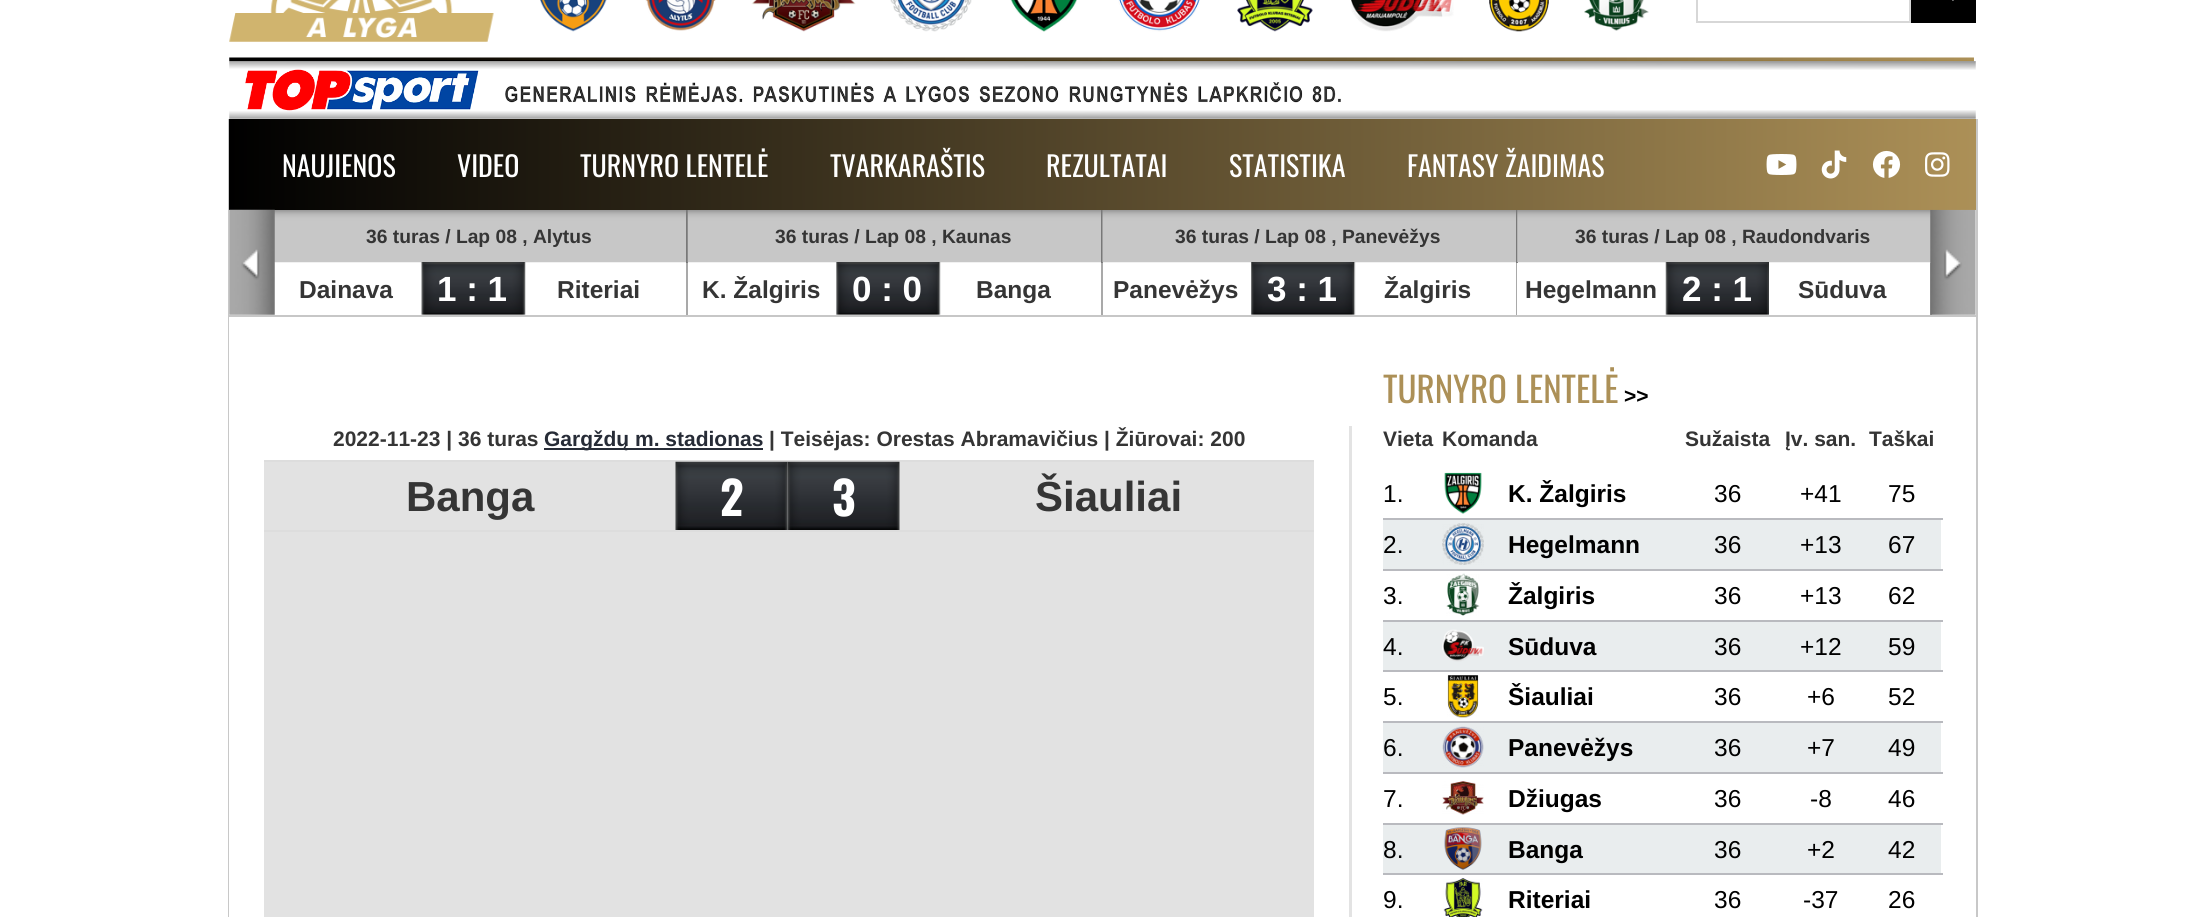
import math
import cairo


def use_color(cr, r, g, b):
  cr.set_source_rgb(r / 255, g / 255, b / 255)

def text(cr, x, y, s, family, size, color, bold=False, italic=False):
  cr.select_font_face(family, cairo.FONT_SLANT_ITALIC if italic else cairo.FONT_SLANT_NORMAL, cairo.FONT_WEIGHT_BOLD if bold else cairo.FONT_WEIGHT_NORMAL)
  cr.set_font_size(size)
  use_color(cr, *color)
  cr.move_to(x, y)
  cr.show_text(s)

def box(cr, x, y, w, h, *color):
  use_color(cr, *color)
  cr.rectangle(x, y, w, h)
  cr.fill()

def picture(cr, path, x, y, w, h):
  cr.save()
  cr.set_source_surface(cairo.ImageSurface.create_from_png(path), x, y)
  cr.rectangle(x, y, w, h)
  cr.fill()
  cr.restore()

def draw(cr):
  use_color(cr, 255, 255, 255)
  cr.paint()
  picture(cr, "img_01.png", 229, 0, 265, 42)
  picture(cr, "img_02.png", 540, 0, 67, 32)
  picture(cr, "img_03.png", 645, 0, 71, 31)
  picture(cr, "img_04.png", 751, 0, 105, 32)
  picture(cr, "img_05.png", 890, 0, 82, 32)
  picture(cr, "img_06.png", 1010, 0, 67, 32)
  picture(cr, "img_07.png", 1118, 0, 82, 32)
  picture(cr, "img_08.png", 1237, 0, 76, 32)
  picture(cr, "img_09.png", 1350, 0, 104, 32)
  picture(cr, "img_10.png", 1489, 0, 60, 32)
  picture(cr, "img_11.png", 1584, 0, 65, 31)
  cr.rectangle(1697, -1, 213, 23)
  use_color(cr, 215, 215, 215)
  cr.stroke()
  box(cr, 1911, 0, 65, 23, 0, 0, 0)
  picture(cr, "img_12.png", 1952, 0, 2, 1)
  picture(cr, "img_13.png", 229, 57, 1747, 62)
  box(cr, 1976, 119, 2, 798, 200, 200, 200)
  box(cr, 228, 119, 1, 798, 200, 200, 200)
  gradient = cairo.LinearGradient(229, 165, 1976, 164)
  gradient.add_color_stop_rgba(0, 0, 0, 0, 1)
  gradient.add_color_stop_rgba(1, 0.675, 0.565, 0.341, 1)
  cr.set_source(gradient)
  cr.rectangle(229, 119, 1747, 91)
  cr.fill()
  picture(cr, "img_14.png", 1766, 154, 31, 21)
  picture(cr, "img_15.png", 1821, 150, 26, 29)
  picture(cr, "img_16.png", 1872, 150, 29, 28)
  picture(cr, "img_17.png", 1925, 152, 25, 25)
  box(cr, 229, 315, 1747, 2, 199, 199, 199)
  picture(cr, "img_20.png", 274, 210, 412, 53)
  picture(cr, "img_18.png", 229, 209, 46, 106)
  box(cr, 1516, 210, 2, 53, 120, 120, 120)
  picture(cr, "img_26.png", 1517, 210, 414, 53)
  box(cr, 1930, 263, 2, 52, 169, 169, 169)
  picture(cr, "img_19.png", 1930, 209, 46, 106)
  box(cr, 686, 210, 2, 53, 120, 120, 120)
  box(cr, 686, 263, 2, 52, 169, 169, 169)
  picture(cr, "img_21.png", 421, 262, 105, 53)
  picture(cr, "img_22.png", 687, 210, 414, 53)
  box(cr, 1101, 210, 2, 53, 120, 120, 120)
  box(cr, 1101, 263, 2, 52, 169, 169, 169)
  picture(cr, "img_23.png", 836, 262, 105, 53)
  picture(cr, "img_24.png", 1102, 210, 414, 53)
  box(cr, 1516, 263, 1, 52, 169, 169, 169)
  picture(cr, "img_25.png", 1251, 262, 105, 53)
  picture(cr, "img_27.png", 1665, 262, 104, 53)
  box(cr, 1349, 426, 3, 491, 227, 227, 227)
  box(cr, 544, 448, 219, 2, 39, 44, 55)
  box(cr, 264, 462, 1050, 455, 226, 226, 226)
  box(cr, 264, 460, 1050, 2, 221, 221, 221)
  box(cr, 264, 530, 1050, 2, 221, 221, 221)
  picture(cr, "img_28.png", 675, 461, 113, 69)
  picture(cr, "img_29.png", 787, 461, 113, 69)
  picture(cr, "img_30.png", 1444, 472, 38, 42)
  box(cr, 1383, 518, 560, 2, 185, 186, 191)
  box(cr, 1383, 520, 558, 49, 233, 237, 238)
  picture(cr, "img_31.png", 1442, 523, 42, 42)
  box(cr, 1383, 569, 560, 2, 185, 186, 191)
  picture(cr, "img_32.png", 1446, 573, 34, 43)
  box(cr, 1383, 620, 560, 2, 185, 186, 191)
  box(cr, 1383, 622, 558, 48, 233, 237, 238)
  picture(cr, "img_33.png", 1442, 629, 42, 33)
  box(cr, 1383, 670, 560, 2, 185, 186, 191)
  picture(cr, "img_34.png", 1447, 675, 32, 43)
  box(cr, 1383, 721, 560, 2, 185, 186, 191)
  box(cr, 1383, 723, 558, 49, 233, 237, 238)
  picture(cr, "img_35.png", 1442, 726, 42, 42)
  box(cr, 1383, 772, 560, 2, 185, 186, 191)
  picture(cr, "img_36.png", 1442, 781, 42, 34)
  box(cr, 1383, 823, 560, 2, 185, 186, 191)
  box(cr, 1383, 825, 558, 48, 233, 237, 238)
  picture(cr, "img_37.png", 1444, 827, 38, 43)
  box(cr, 1383, 873, 560, 2, 185, 186, 191)
  picture(cr, "img_38.png", 1443, 878, 40, 39)
  text(cr, 282, 177, "NAUJIENOS", "Oswald", 28, (255, 255, 255))
  text(cr, 457, 177, "VIDEO", "Oswald", 28, (255, 255, 255))
  text(cr, 580, 177, "TURNYRO LENTELĖ", "Oswald", 28, (255, 255, 255))
  text(cr, 830, 177, "TVARKARAŠTIS", "Oswald", 28, (255, 255, 255))
  text(cr, 1046, 177, "REZULTATAI", "Oswald", 28, (255, 255, 255))
  text(cr, 1229, 177, "STATISTIKA", "Oswald", 28, (255, 255, 255))
  text(cr, 1407, 177, "FANTASY ŽAIDIMAS", "Oswald", 28, (255, 255, 255))
  text(cr, 366, 243, "36 turas / Lap 08 , Alytus", "Liberation Sans", 19.25, (53, 53, 53), bold=True)
  text(cr, 299, 298, "Dainava", "Liberation Sans", 24.5, (53, 53, 53), bold=True)
  text(cr, 437, 301, "1 : 1", "Liberation Sans", 35, (255, 255, 255), bold=True)
  text(cr, 557, 298, "Riteriai", "Liberation Sans", 24.5, (53, 53, 53), bold=True)
  text(cr, 775, 243, "36 turas / Lap 08 , Kaunas", "Liberation Sans", 19.25, (53, 53, 53), bold=True)
  text(cr, 702, 298, "K. Žalgiris", "Liberation Sans", 24.5, (53, 53, 53), bold=True)
  text(cr, 852, 301, "0 : 0", "Liberation Sans", 35, (255, 255, 255), bold=True)
  text(cr, 976, 298, "Banga", "Liberation Sans", 24.5, (53, 53, 53), bold=True)
  text(cr, 1175, 243, "36 turas / Lap 08 , Panevėžys", "Liberation Sans", 19.25, (53, 53, 53), bold=True)
  text(cr, 1113, 298, "Panevėžys", "Liberation Sans", 24.5, (53, 53, 53), bold=True)
  text(cr, 1267, 301, "3 : 1", "Liberation Sans", 35, (255, 255, 255), bold=True)
  text(cr, 1384, 298, "Žalgiris", "Liberation Sans", 24.5, (53, 53, 53), bold=True)
  text(cr, 1575, 243, "36 turas / Lap 08 , Raudondvaris", "Liberation Sans", 19.25, (53, 53, 53), bold=True)
  text(cr, 1525, 298, "Hegelmann", "Liberation Sans", 24.5, (53, 53, 53), bold=True)
  text(cr, 1682, 301, "2 : 1", "Liberation Sans", 35, (255, 255, 255), bold=True)
  text(cr, 1798, 298, "Sūduva", "Liberation Sans", 24.5, (53, 53, 53), bold=True)
  text(cr, 333, 446, "2022-11-23 | 36 turas", "Liberation Sans", 21, (53, 53, 53), bold=True)
  text(cr, 544, 446, "Gargždų m. stadionas", "Liberation Sans", 21, (39, 44, 55), bold=True)
  text(cr, 769, 446, "| Teisėjas: Orestas Abramavičius | Žiūrovai: 200", "Liberation Sans", 21, (53, 53, 53), bold=True)
  text(cr, 406, 511, "Banga", "Liberation Sans", 42, (53, 53, 53), bold=True)
  text(cr, 720, 516, "2", "Oswald", 46, (255, 255, 255), bold=True)
  text(cr, 832, 516, "3", "Oswald", 46, (255, 255, 255), bold=True)
  text(cr, 1035, 511, "Šiauliai", "Liberation Sans", 42, (53, 53, 53), bold=True)
  text(cr, 1383, 403, "TURNYRO LENTELĖ", "Oswald", 35, (172, 144, 87))
  text(cr, 1624, 403, ">>", "Liberation Sans", 21, (0, 0, 0), bold=True)
  text(cr, 1383, 446, "Vieta", "Liberation Sans", 21, (53, 53, 53), bold=True)
  text(cr, 1442, 446, "Komanda", "Liberation Sans", 21, (53, 53, 53), bold=True)
  text(cr, 1685, 446, "Sužaista", "Liberation Sans", 21, (53, 53, 53), bold=True)
  text(cr, 1785, 446, "Įv. san.", "Liberation Sans", 21, (53, 53, 53), bold=True)
  text(cr, 1869, 446, "Taškai", "Liberation Sans", 21, (53, 53, 53), bold=True)
  text(cr, 1383, 502, "1.", "Liberation Sans", 24.5, (0, 0, 0))
  text(cr, 1508, 502, "K. Žalgiris", "Liberation Sans", 24.5, (0, 0, 0), bold=True)
  text(cr, 1714, 502, "36", "Liberation Sans", 24.5, (0, 0, 0))
  text(cr, 1800, 502, "+41", "Liberation Sans", 24.5, (0, 0, 0))
  text(cr, 1888, 502, "75", "Liberation Sans", 24.5, (0, 0, 0))
  text(cr, 1383, 553, "2.", "Liberation Sans", 24.5, (0, 0, 0))
  text(cr, 1508, 553, "Hegelmann", "Liberation Sans", 24.5, (0, 0, 0), bold=True)
  text(cr, 1714, 553, "36", "Liberation Sans", 24.5, (0, 0, 0))
  text(cr, 1800, 553, "+13", "Liberation Sans", 24.5, (0, 0, 0))
  text(cr, 1888, 553, "67", "Liberation Sans", 24.5, (0, 0, 0))
  text(cr, 1383, 604, "3.", "Liberation Sans", 24.5, (0, 0, 0))
  text(cr, 1508, 604, "Žalgiris", "Liberation Sans", 24.5, (0, 0, 0), bold=True)
  text(cr, 1714, 604, "36", "Liberation Sans", 24.5, (0, 0, 0))
  text(cr, 1800, 604, "+13", "Liberation Sans", 24.5, (0, 0, 0))
  text(cr, 1888, 604, "62", "Liberation Sans", 24.5, (0, 0, 0))
  text(cr, 1383, 655, "4.", "Liberation Sans", 24.5, (0, 0, 0))
  text(cr, 1508, 655, "Sūduva", "Liberation Sans", 24.5, (0, 0, 0), bold=True)
  text(cr, 1714, 655, "36", "Liberation Sans", 24.5, (0, 0, 0))
  text(cr, 1800, 655, "+12", "Liberation Sans", 24.5, (0, 0, 0))
  text(cr, 1888, 655, "59", "Liberation Sans", 24.5, (0, 0, 0))
  text(cr, 1383, 705, "5.", "Liberation Sans", 24.5, (0, 0, 0))
  text(cr, 1508, 705, "Šiauliai", "Liberation Sans", 24.5, (0, 0, 0), bold=True)
  text(cr, 1714, 705, "36", "Liberation Sans", 24.5, (0, 0, 0))
  text(cr, 1807, 705, "+6", "Liberation Sans", 24.5, (0, 0, 0))
  text(cr, 1888, 705, "52", "Liberation Sans", 24.5, (0, 0, 0))
  text(cr, 1383, 756, "6.", "Liberation Sans", 24.5, (0, 0, 0))
  text(cr, 1508, 756, "Panevėžys", "Liberation Sans", 24.5, (0, 0, 0), bold=True)
  text(cr, 1714, 756, "36", "Liberation Sans", 24.5, (0, 0, 0))
  text(cr, 1807, 756, "+7", "Liberation Sans", 24.5, (0, 0, 0))
  text(cr, 1888, 756, "49", "Liberation Sans", 24.5, (0, 0, 0))
  text(cr, 1383, 807, "7.", "Liberation Sans", 24.5, (0, 0, 0))
  text(cr, 1508, 807, "Džiugas", "Liberation Sans", 24.5, (0, 0, 0), bold=True)
  text(cr, 1714, 807, "36", "Liberation Sans", 24.5, (0, 0, 0))
  text(cr, 1810, 807, "-8", "Liberation Sans", 24.5, (0, 0, 0))
  text(cr, 1888, 807, "46", "Liberation Sans", 24.5, (0, 0, 0))
  text(cr, 1383, 858, "8.", "Liberation Sans", 24.5, (0, 0, 0))
  text(cr, 1508, 858, "Banga", "Liberation Sans", 24.5, (0, 0, 0), bold=True)
  text(cr, 1714, 858, "36", "Liberation Sans", 24.5, (0, 0, 0))
  text(cr, 1807, 858, "+2", "Liberation Sans", 24.5, (0, 0, 0))
  text(cr, 1888, 858, "42", "Liberation Sans", 24.5, (0, 0, 0))
  text(cr, 1383, 908, "9.", "Liberation Sans", 24.5, (0, 0, 0))
  text(cr, 1508, 908, "Riteriai", "Liberation Sans", 24.5, (0, 0, 0), bold=True)
  text(cr, 1714, 908, "36", "Liberation Sans", 24.5, (0, 0, 0))
  text(cr, 1803, 908, "-37", "Liberation Sans", 24.5, (0, 0, 0))
  text(cr, 1888, 908, "26", "Liberation Sans", 24.5, (0, 0, 0))


surface = cairo.ImageSurface(cairo.FORMAT_RGB24, 2205, 917)
cr = cairo.Context(surface)
options = cairo.FontOptions()
options.set_hint_metrics(cairo.HINT_METRICS_OFF)
options.set_hint_style(cairo.HINT_STYLE_NONE)
cr.set_font_options(options)
cr.set_miter_limit(4)
draw(cr)
surface.write_to_png("out.png")
